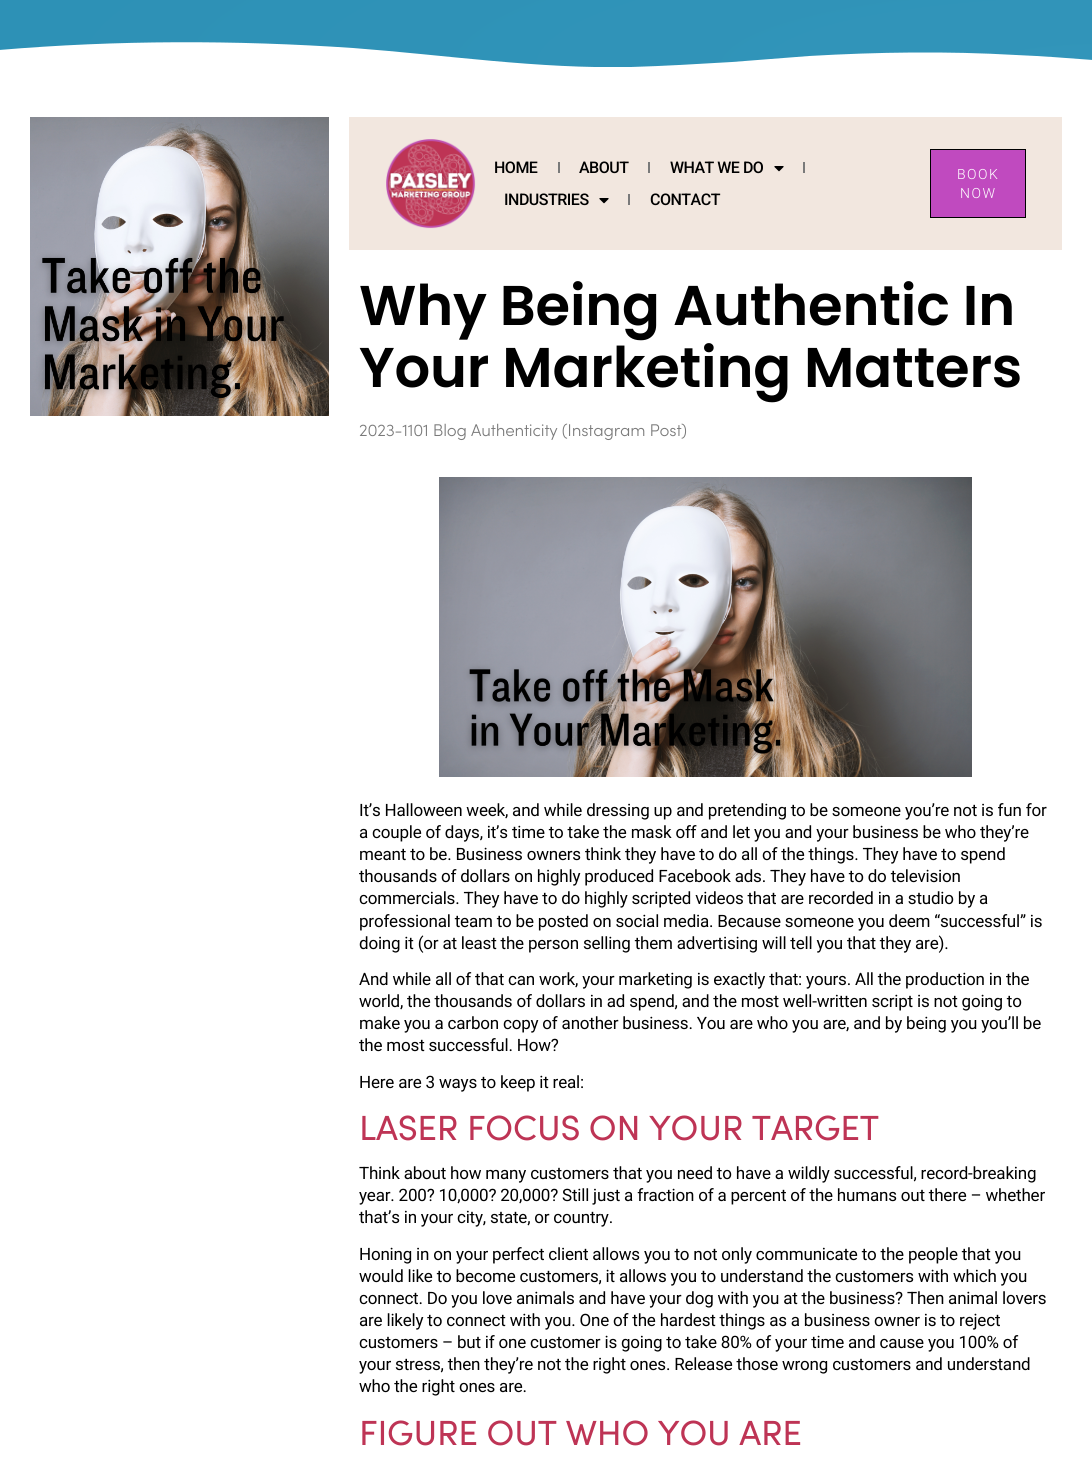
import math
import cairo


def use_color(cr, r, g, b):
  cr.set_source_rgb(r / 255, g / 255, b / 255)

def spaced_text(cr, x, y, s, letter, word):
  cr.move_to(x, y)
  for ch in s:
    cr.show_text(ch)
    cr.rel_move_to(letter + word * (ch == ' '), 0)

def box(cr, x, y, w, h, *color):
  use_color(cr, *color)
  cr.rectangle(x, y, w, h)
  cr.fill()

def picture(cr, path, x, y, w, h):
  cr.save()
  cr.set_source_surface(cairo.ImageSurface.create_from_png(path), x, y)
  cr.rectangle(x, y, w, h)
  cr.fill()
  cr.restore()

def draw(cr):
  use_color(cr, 255, 255, 255)
  cr.paint()
  gradient = cairo.RadialGradient(0, 0, 0, 0, 0, 1)
  gradient.set_matrix(cairo.Matrix(1 / 1544, 0, 0, 1 / 325, -1 * 1092 / 1544, -1 * 67 / 325))
  gradient.add_color_stop_rgba(0, 0.196, 0.584, 0.729, 1)
  gradient.add_color_stop_rgba(1, 0.169, 0.561, 0.706, 1)
  cr.set_source(gradient)
  cr.rectangle(0, 0, 1092, 67)
  cr.fill()
  use_color(cr, 255, 255, 255)
  cr.new_path()
  cr.move_to(631, 67)
  cr.curve_to(538, 69, 446, 55, 353, 48)
  cr.curve_to(235, 40, 117, 40, -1, 50)
  cr.line_to(-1, 68)
  cr.line_to(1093, 68)
  cr.line_to(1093, 60)
  cr.curve_to(1067, 58, 1041, 56, 1016, 55)
  cr.curve_to(947, 51, 878, 52, 809, 56)
  cr.line_to(732, 62)
  cr.curve_to(698, 64, 665, 66, 631, 67)
  cr.close_path()
  cr.fill()
  picture(cr, "img_01.png", 30, 117, 299, 299)
  box(cr, 349, 117, 713, 133, 242, 231, 223)
  picture(cr, "img_02.png", 386, 139, 90, 90)
  box(cr, 558, 162, 2, 11, 122, 122, 122)
  box(cr, 648, 162, 2, 11, 122, 122, 122)
  picture(cr, "img_03.png", 774, 166, 10, 6)
  box(cr, 803, 162, 2, 11, 122, 122, 122)
  picture(cr, "img_03.png", 599, 198, 10, 6)
  box(cr, 628, 194, 2, 11, 122, 122, 122)
  use_color(cr, 192, 74, 191)
  cr.rectangle(930.5, 149.5, 95, 68)
  cr.fill_preserve()
  use_color(cr, 0, 0, 0)
  cr.set_line_width(1)
  cr.stroke()
  picture(cr, "img_04.png", 439, 477, 533, 300)
  cr.select_font_face("Roboto Medium")
  cr.set_font_size(16)
  spaced_text(cr, 494, 173, "HOME", -0.5, 0)
  spaced_text(cr, 579, 173, "ABOUT", -0.5, 0)
  spaced_text(cr, 670, 173, "WHAT WE DO", -0.5, 0)
  spaced_text(cr, 504, 205, "INDUSTRIES", -0.5, 0)
  spaced_text(cr, 650, 205, "CONTACT", -0.5, 0)
  cr.select_font_face("Roboto Light")
  cr.set_font_size(14)
  use_color(cr, 255, 255, 255)
  spaced_text(cr, 957, 179, "BOOK", 1.5, 0)
  spaced_text(cr, 960, 198, "NOW", 1.5, 0)
  cr.select_font_face("Poppins SemiBold")
  cr.set_font_size(56)
  use_color(cr, 0, 0, 0)
  spaced_text(cr, 359, 325, "Why Being Authentic In", -0.2, 0)
  spaced_text(cr, 359, 387, "Your Marketing Matters", -0.2, 0)
  cr.select_font_face("Sofia Light")
  cr.set_font_size(17)
  use_color(cr, 122, 122, 122)
  spaced_text(cr, 359, 436, "2023-1101 Blog Authenticity (Instagram Post)", -0.2, 0)
  cr.select_font_face("Roboto")
  use_color(cr, 0, 0, 0)
  spaced_text(cr, 359, 816, "It’s Halloween week, and while dressing up and pretending to be someone you’re not is fun for", -0.2, 0)
  spaced_text(cr, 359, 838, "a couple of days, it’s time to take the mask off and let you and your business be who they’re", -0.2, 0)
  spaced_text(cr, 359, 860, "meant to be. Business owners think they have to do all of the things. They have to spend", -0.2, 0)
  spaced_text(cr, 359, 882, "thousands of dollars on highly produced Facebook ads. They have to do television", -0.2, 0)
  spaced_text(cr, 359, 904, "commercials. They have to do highly scripted videos that are recorded in a studio by a", -0.2, 0)
  spaced_text(cr, 359, 927, "professional team to be posted on social media. Because someone you deem “successful” is", -0.2, 0)
  spaced_text(cr, 359, 949, "doing it (or at least the person selling them advertising will tell you that they are).", -0.2, 0)
  spaced_text(cr, 359, 985, "And while all of that can work, your marketing is exactly that: yours. All the production in the", -0.2, 0)
  spaced_text(cr, 359, 1007, "world, the thousands of dollars in ad spend, and the most well-written script is not going to", -0.2, 0)
  spaced_text(cr, 359, 1029, "make you a carbon copy of another business. You are who you are, and by being you you’ll be", -0.2, 0)
  spaced_text(cr, 359, 1051, "the most successful. How?", -0.2, 0)
  spaced_text(cr, 359, 1088, "Here are 3 ways to keep it real:", -0.2, 0)
  cr.select_font_face("Sofia")
  cr.set_font_size(35)
  use_color(cr, 190, 52, 85)
  spaced_text(cr, 359, 1140, "LASER FOCUS ON YOUR TARGET", -0.2, 0)
  cr.select_font_face("Roboto")
  cr.set_font_size(17)
  use_color(cr, 0, 0, 0)
  spaced_text(cr, 359, 1179, "Think about how many customers that you need to have a wildly successful, record-breaking", -0.2, 0)
  spaced_text(cr, 359, 1201, "year. 200? 10,000? 20,000? Still just a fraction of a percent of the humans out there – whether", -0.2, 0)
  spaced_text(cr, 359, 1223, "that’s in your city, state, or country.", -0.2, 0)
  spaced_text(cr, 359, 1260, "Honing in on your perfect client allows you to not only communicate to the people that you", -0.2, 0)
  spaced_text(cr, 359, 1282, "would like to become customers, it allows you to understand the customers with which you", -0.2, 0)
  spaced_text(cr, 359, 1304, "connect. Do you love animals and have your dog with you at the business? Then animal lovers", -0.2, 0)
  spaced_text(cr, 359, 1326, "are likely to connect with you. One of the hardest things as a business owner is to reject", -0.2, 0)
  spaced_text(cr, 359, 1348, "customers – but if one customer is going to take 80% of your time and cause you 100% of", -0.2, 0)
  spaced_text(cr, 359, 1370, "your stress, then they’re not the right ones. Release those wrong customers and understand", -0.2, 0)
  spaced_text(cr, 359, 1392, "who the right ones are.", -0.2, 0)
  cr.select_font_face("Sofia")
  cr.set_font_size(35)
  use_color(cr, 190, 52, 85)
  spaced_text(cr, 359, 1445, "FIGURE OUT WHO YOU ARE", -0.2, 0)


surface = cairo.ImageSurface(cairo.FORMAT_RGB24, 1092, 1478)
cr = cairo.Context(surface)
options = cairo.FontOptions()
options.set_hint_metrics(cairo.HINT_METRICS_OFF)
options.set_hint_style(cairo.HINT_STYLE_NONE)
cr.set_font_options(options)
cr.set_miter_limit(4)
draw(cr)
surface.write_to_png("out.png")
